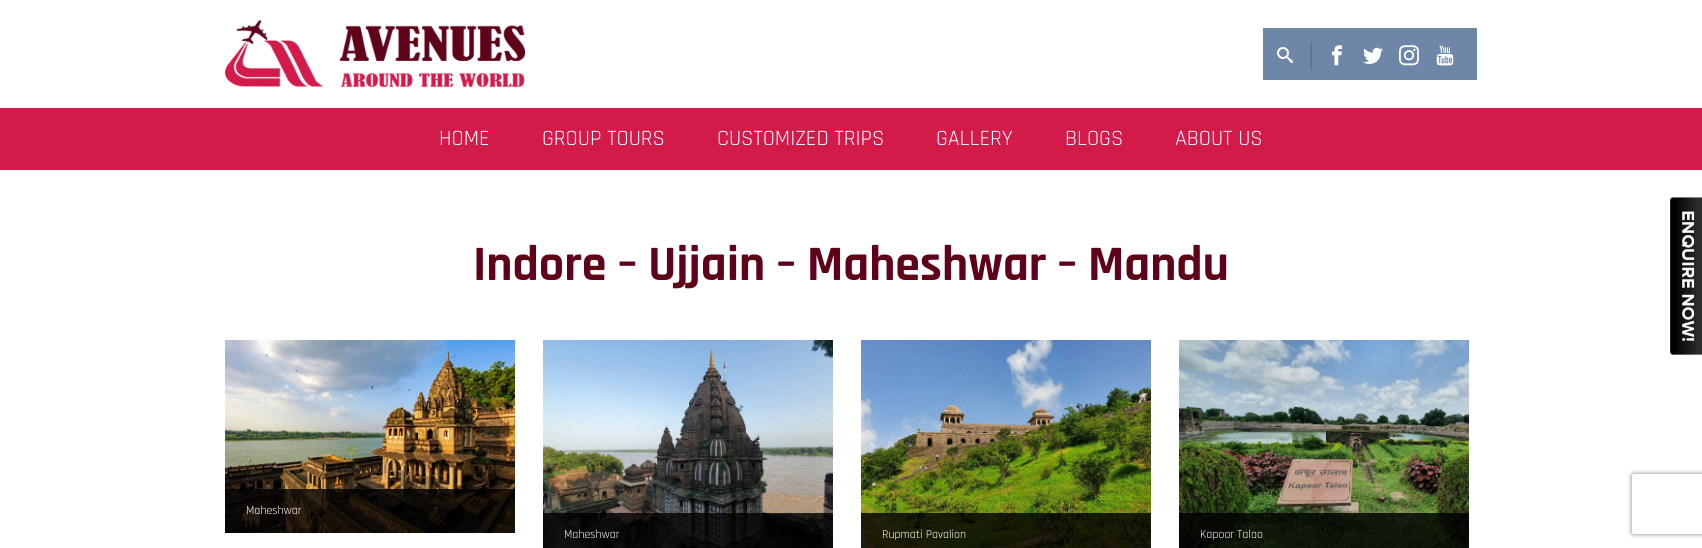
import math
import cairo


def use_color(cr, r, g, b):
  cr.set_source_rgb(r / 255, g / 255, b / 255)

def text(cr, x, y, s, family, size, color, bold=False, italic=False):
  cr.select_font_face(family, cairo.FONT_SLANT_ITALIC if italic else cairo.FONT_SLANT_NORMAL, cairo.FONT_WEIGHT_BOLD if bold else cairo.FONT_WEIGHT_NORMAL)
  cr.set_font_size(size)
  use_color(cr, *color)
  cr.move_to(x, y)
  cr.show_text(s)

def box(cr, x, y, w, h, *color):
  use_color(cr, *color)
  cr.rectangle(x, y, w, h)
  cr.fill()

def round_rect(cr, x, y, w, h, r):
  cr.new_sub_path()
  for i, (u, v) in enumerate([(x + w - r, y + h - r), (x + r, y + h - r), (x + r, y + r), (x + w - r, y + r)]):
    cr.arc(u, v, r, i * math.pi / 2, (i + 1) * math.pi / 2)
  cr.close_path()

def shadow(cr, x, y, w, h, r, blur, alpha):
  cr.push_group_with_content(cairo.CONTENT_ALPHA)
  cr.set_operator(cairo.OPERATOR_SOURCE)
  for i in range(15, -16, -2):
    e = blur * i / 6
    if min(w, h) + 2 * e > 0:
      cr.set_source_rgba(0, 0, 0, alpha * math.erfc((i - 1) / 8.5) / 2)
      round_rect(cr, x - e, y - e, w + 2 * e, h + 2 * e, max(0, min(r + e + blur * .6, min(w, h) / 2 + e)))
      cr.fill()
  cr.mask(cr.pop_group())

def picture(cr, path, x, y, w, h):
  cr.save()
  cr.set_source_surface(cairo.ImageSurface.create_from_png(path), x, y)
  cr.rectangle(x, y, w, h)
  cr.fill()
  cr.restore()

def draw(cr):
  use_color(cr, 255, 255, 255)
  cr.paint()
  picture(cr, "img_01.png", 225, 20, 300, 68)
  box(cr, 1263, 28, 214, 52, 110, 134, 168)
  picture(cr, "img_02.png", 1277, 47, 16, 16)
  box(cr, 1310, 42, 2, 28, 89, 119, 157)
  picture(cr, "img_03.png", 1332, 45, 10, 21)
  picture(cr, "img_04.png", 1363, 47, 20, 17)
  picture(cr, "img_05.png", 1399, 45, 20, 21)
  picture(cr, "img_06.png", 1436, 45, 18, 21)
  box(cr, 0, 108, 1702, 62, 210, 27, 75)
  picture(cr, "img_07.png", 225, 340, 290, 193)
  cr.set_source_rgba(0, 0, 0, 0.8)
  cr.rectangle(225, 489, 290, 44)
  cr.fill()
  picture(cr, "img_08.png", 543, 340, 290, 208)
  cr.rectangle(543, 513, 290, 35)
  cr.fill()
  picture(cr, "img_09.png", 861, 340, 290, 208)
  cr.rectangle(861, 513, 290, 35)
  cr.fill()
  picture(cr, "img_10.png", 1179, 340, 290, 208)
  cr.rectangle(1179, 513, 290, 35)
  cr.fill()
  picture(cr, "img_11.png", 1670, 197, 32, 158)
  cr.save()
  cr.set_fill_rule(cairo.FILL_RULE_EVEN_ODD)
  cr.new_path()
  cr.move_to(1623, 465)
  cr.line_to(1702, 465)
  cr.line_to(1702, 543)
  cr.line_to(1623, 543)
  cr.close_path()
  cr.move_to(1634, 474)
  cr.line_to(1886, 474)
  cr.curve_to(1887, 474, 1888, 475, 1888, 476)
  cr.line_to(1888, 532)
  cr.curve_to(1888, 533, 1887, 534, 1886, 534)
  cr.line_to(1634, 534)
  cr.curve_to(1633, 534, 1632, 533, 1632, 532)
  cr.line_to(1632, 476)
  cr.curve_to(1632, 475, 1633, 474, 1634, 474)
  cr.close_path()
  cr.clip()
  use_color(cr, 128, 128, 128)
  shadow(cr, 1632, 474, 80, 60, 2, 2.5, 1)
  cr.restore()
  text(cr, 439, 145, "HOME", "Rajdhani", 22, (255, 253, 254))
  text(cr, 542, 145, "GROUP TOURS", "Rajdhani", 22, (255, 253, 254))
  text(cr, 717, 145, "CUSTOMIZED TRIPS", "Rajdhani", 22, (255, 253, 254))
  text(cr, 936, 145, "GALLERY", "Rajdhani", 22, (255, 253, 254))
  text(cr, 1065, 145, "BLOGS", "Rajdhani", 22, (255, 253, 254))
  text(cr, 1175, 145, "ABOUT US", "Rajdhani", 22, (255, 253, 254))
  text(cr, 473, 280, "Indore – Ujjain – Maheshwar – Mandu", "Rajdhani", 50, (95, 3, 27), bold=True)
  text(cr, 246, 514, "Maheshwar", "Rajdhani", 12, (255, 253, 254))
  text(cr, 564, 538, "Maheshwar", "Rajdhani", 12, (255, 253, 254))
  text(cr, 882, 538, "Rupmati Pavalion", "Rajdhani", 12, (255, 253, 254))
  text(cr, 1200, 538, "Kapoor Talao", "Rajdhani", 12, (255, 253, 254))


surface = cairo.ImageSurface(cairo.FORMAT_RGB24, 1702, 548)
cr = cairo.Context(surface)
options = cairo.FontOptions()
options.set_hint_metrics(cairo.HINT_METRICS_OFF)
options.set_hint_style(cairo.HINT_STYLE_NONE)
cr.set_font_options(options)
cr.set_miter_limit(4)
draw(cr)
surface.write_to_png("out.png")
